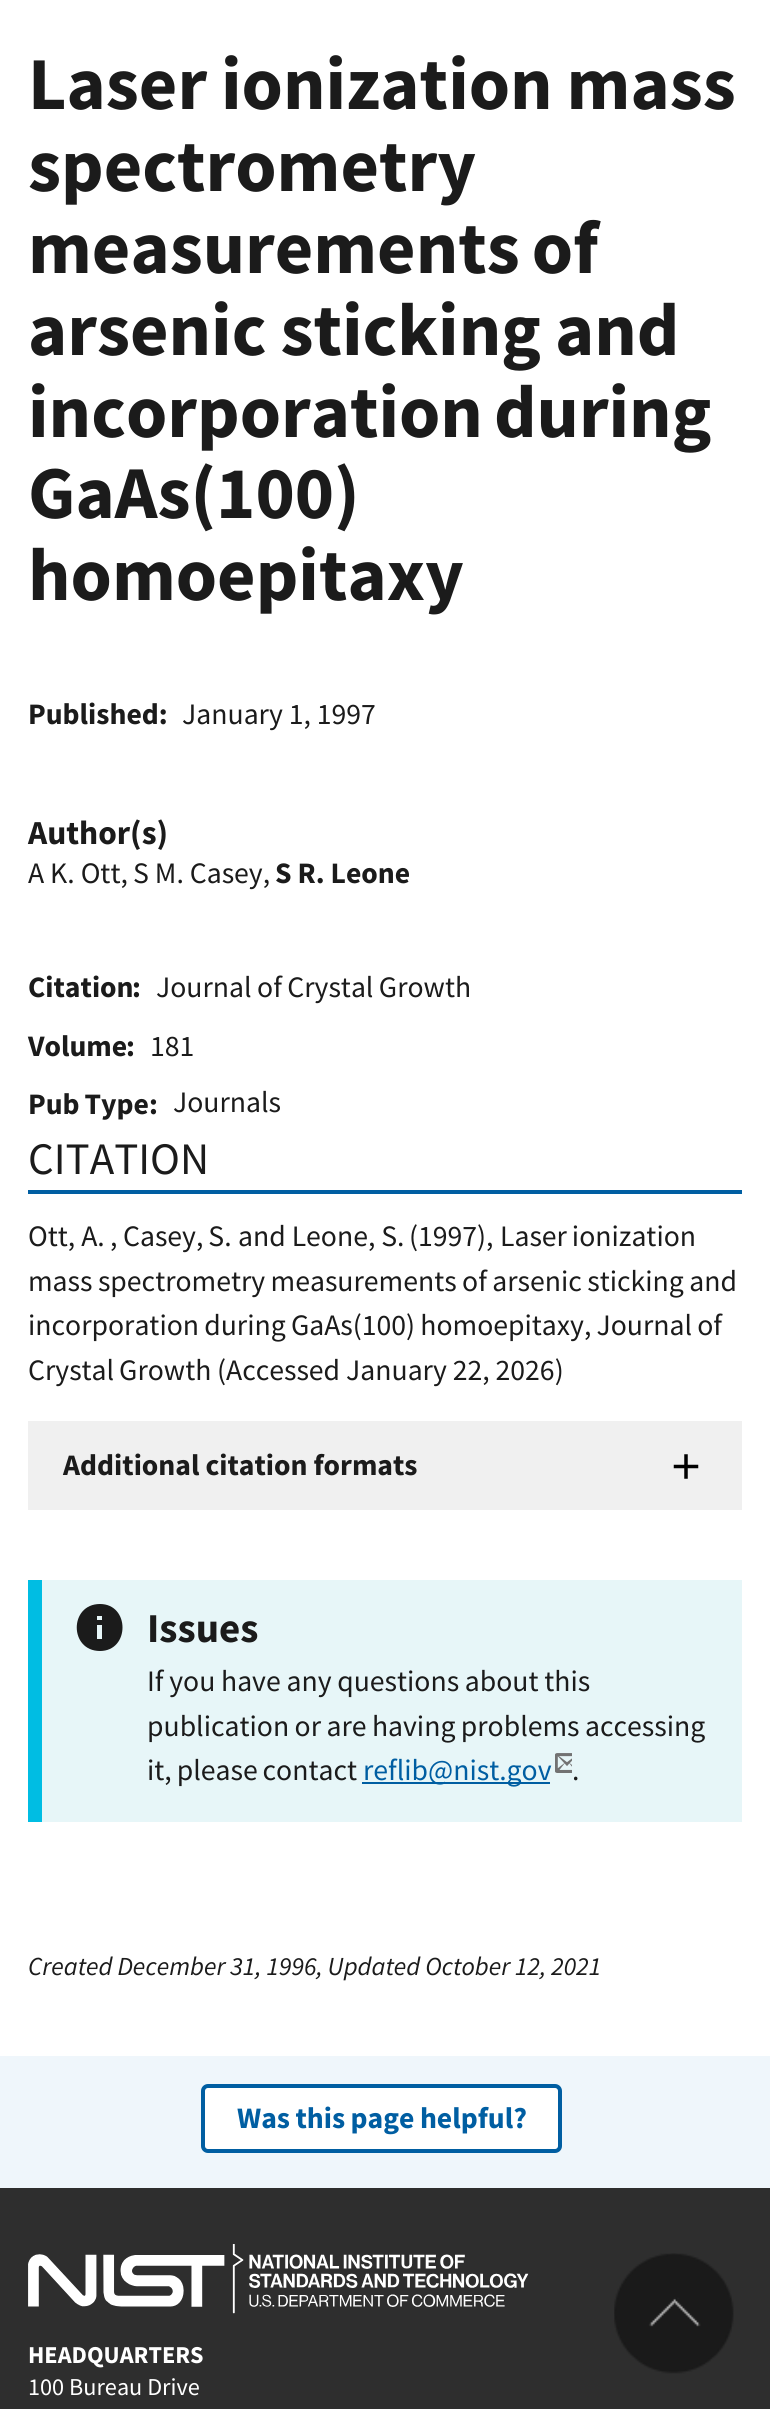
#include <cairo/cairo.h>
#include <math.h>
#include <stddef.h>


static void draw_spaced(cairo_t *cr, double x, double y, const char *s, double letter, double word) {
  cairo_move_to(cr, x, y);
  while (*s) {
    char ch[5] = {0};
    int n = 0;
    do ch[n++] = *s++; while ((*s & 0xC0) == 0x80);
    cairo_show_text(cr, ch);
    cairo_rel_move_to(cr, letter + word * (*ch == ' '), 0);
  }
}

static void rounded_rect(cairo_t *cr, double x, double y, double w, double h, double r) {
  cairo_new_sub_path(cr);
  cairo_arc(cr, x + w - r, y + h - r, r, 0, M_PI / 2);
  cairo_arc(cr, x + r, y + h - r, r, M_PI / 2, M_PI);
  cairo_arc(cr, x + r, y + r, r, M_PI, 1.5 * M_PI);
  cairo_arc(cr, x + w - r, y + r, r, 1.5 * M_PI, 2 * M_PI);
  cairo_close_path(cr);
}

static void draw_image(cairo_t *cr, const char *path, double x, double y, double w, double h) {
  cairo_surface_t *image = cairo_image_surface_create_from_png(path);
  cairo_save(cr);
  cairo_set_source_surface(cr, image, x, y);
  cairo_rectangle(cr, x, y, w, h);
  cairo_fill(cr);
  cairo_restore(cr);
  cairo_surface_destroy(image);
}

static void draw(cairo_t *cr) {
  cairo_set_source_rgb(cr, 1, 1, 1);
  cairo_paint(cr);
  cairo_set_source_rgb(cr, 0, 94 / 255.0, 162 / 255.0);
  cairo_rectangle(cr, 28, 1190, 714, 4);
  cairo_fill(cr);
  cairo_set_source_rgb(cr, 240 / 255.0, 240 / 255.0, 240 / 255.0);
  cairo_rectangle(cr, 28, 1421, 714, 89);
  cairo_fill(cr);
  draw_image(cr, "images/1.png", 673, 1454, 26, 25);
  cairo_set_source_rgb(cr, 231 / 255.0, 246 / 255.0, 248 / 255.0);
  cairo_rectangle(cr, 42, 1580, 700, 242);
  cairo_fill(cr);
  cairo_set_source_rgb(cr, 0, 189 / 255.0, 227 / 255.0);
  cairo_rectangle(cr, 28, 1580, 14, 242);
  cairo_fill(cr);
  cairo_set_source_rgb(cr, 27 / 255.0, 27 / 255.0, 27 / 255.0);
  cairo_new_path(cr);
  cairo_move_to(cr, 100, 1604);
  cairo_curve_to(cr, 69, 1604, 69, 1651, 100, 1651);
  cairo_curve_to(cr, 130, 1651, 130, 1604, 100, 1604);
  cairo_close_path(cr);
  cairo_move_to(cr, 102, 1639);
  cairo_line_to(cr, 97, 1639);
  cairo_line_to(cr, 97, 1625);
  cairo_line_to(cr, 102, 1625);
  cairo_close_path(cr);
  cairo_move_to(cr, 102, 1620);
  cairo_line_to(cr, 97, 1620);
  cairo_line_to(cr, 97, 1616);
  cairo_line_to(cr, 102, 1616);
  cairo_close_path(cr);
  cairo_fill(cr);
  cairo_set_source_rgb(cr, 0, 94 / 255.0, 162 / 255.0);
  cairo_rectangle(cr, 362, 1782, 188, 2);
  cairo_fill(cr);
  draw_image(cr, "images/2.png", 555, 1753, 17, 20);
  cairo_set_source_rgb(cr, 239 / 255.0, 246 / 255.0, 251 / 255.0);
  cairo_rectangle(cr, 0, 2056, 770, 132);
  cairo_fill(cr);
  cairo_set_source_rgb(cr, 1, 1, 1);
  rounded_rect(cr, 203, 2086, 357, 65, 5);
  cairo_fill_preserve(cr);
  cairo_set_source_rgb(cr, 0, 94 / 255.0, 162 / 255.0);
  cairo_set_line_width(cr, 4);
  cairo_stroke(cr);
  cairo_set_source_rgb(cr, 46 / 255.0, 46 / 255.0, 46 / 255.0);
  cairo_rectangle(cr, 0, 2188, 770, 221);
  cairo_fill(cr);
  draw_image(cr, "images/3.png", 28, 2244, 501, 70);
  draw_image(cr, "images/4.png", 614, 2253, 120, 121);
  cairo_select_font_face(cr, "Source Sans Pro", CAIRO_FONT_SLANT_NORMAL, CAIRO_FONT_WEIGHT_BOLD);
  cairo_set_font_size(cr, 74.5);
  cairo_set_source_rgb(cr, 27 / 255.0, 27 / 255.0, 27 / 255.0);
  draw_spaced(cr, 28, 109, "Laser ionization mass", 0, -1);
  cairo_move_to(cr, 28, 191);
  cairo_show_text(cr, "spectrometry");
  draw_spaced(cr, 28, 273, "measurements of", 0, -3);
  draw_spaced(cr, 28, 355, "arsenic sticking and", 0, -1);
  draw_spaced(cr, 28, 437, "incorporation during", 0, -4);
  cairo_move_to(cr, 28, 518);
  cairo_show_text(cr, "GaAs(100)");
  cairo_move_to(cr, 28, 600);
  cairo_show_text(cr, "homoepitaxy");
  cairo_set_font_size(cr, 29.7);
  cairo_move_to(cr, 28, 724);
  cairo_show_text(cr, "Published:");
  cairo_select_font_face(cr, "Source Sans Pro", CAIRO_FONT_SLANT_NORMAL, CAIRO_FONT_WEIGHT_NORMAL);
  cairo_move_to(cr, 182, 724);
  cairo_show_text(cr, "January 1, 1997");
  cairo_select_font_face(cr, "Source Sans Pro", CAIRO_FONT_SLANT_NORMAL, CAIRO_FONT_WEIGHT_BOLD);
  cairo_set_font_size(cr, 33.5);
  cairo_move_to(cr, 28, 844);
  cairo_show_text(cr, "Author(s)");
  cairo_select_font_face(cr, "Source Sans Pro", CAIRO_FONT_SLANT_NORMAL, CAIRO_FONT_WEIGHT_NORMAL);
  cairo_set_font_size(cr, 29.7);
  cairo_move_to(cr, 28, 883);
  cairo_show_text(cr, "A K. Ott,");
  cairo_move_to(cr, 133, 883);
  cairo_show_text(cr, "S M. Casey,");
  cairo_select_font_face(cr, "Source Sans Pro", CAIRO_FONT_SLANT_NORMAL, CAIRO_FONT_WEIGHT_BOLD);
  cairo_move_to(cr, 275, 883);
  cairo_show_text(cr, "S R. Leone");
  cairo_move_to(cr, 28, 997);
  cairo_show_text(cr, "Citation");
  cairo_move_to(cr, 132, 997);
  cairo_show_text(cr, ":");
  cairo_select_font_face(cr, "Source Sans Pro", CAIRO_FONT_SLANT_NORMAL, CAIRO_FONT_WEIGHT_NORMAL);
  draw_spaced(cr, 156, 997, "Journal of Crystal Growth", 0, -0.5);
  cairo_select_font_face(cr, "Source Sans Pro", CAIRO_FONT_SLANT_NORMAL, CAIRO_FONT_WEIGHT_BOLD);
  cairo_move_to(cr, 28, 1056);
  cairo_show_text(cr, "Volume");
  cairo_move_to(cr, 126, 1056);
  cairo_show_text(cr, ":");
  cairo_select_font_face(cr, "Source Sans Pro", CAIRO_FONT_SLANT_NORMAL, CAIRO_FONT_WEIGHT_NORMAL);
  cairo_move_to(cr, 150, 1056);
  cairo_show_text(cr, "181");
  cairo_select_font_face(cr, "Source Sans Pro", CAIRO_FONT_SLANT_NORMAL, CAIRO_FONT_WEIGHT_BOLD);
  draw_spaced(cr, 28, 1114, "Pub Type", 0, -1);
  cairo_move_to(cr, 149, 1114);
  cairo_show_text(cr, ":");
  cairo_select_font_face(cr, "Source Sans Pro", CAIRO_FONT_SLANT_NORMAL, CAIRO_FONT_WEIGHT_NORMAL);
  cairo_move_to(cr, 173, 1112);
  cairo_show_text(cr, "Journals");
  cairo_set_font_size(cr, 45);
  cairo_move_to(cr, 28, 1174);
  cairo_show_text(cr, "CITATION");
  cairo_set_font_size(cr, 29.7);
  cairo_move_to(cr, 28, 1246);
  cairo_show_text(cr, "Ott, A.");
  cairo_move_to(cr, 110, 1246);
  cairo_show_text(cr, ",");
  draw_spaced(cr, 123, 1246, "Casey, S.", 0, -1);
  cairo_move_to(cr, 238, 1246);
  cairo_show_text(cr, "and Leone, S.");
  cairo_move_to(cr, 409, 1246);
  cairo_show_text(cr, "(1997),");
  draw_spaced(cr, 500, 1246, "Laser ionization", 0, -1);
  draw_spaced(cr, 28, 1291, "mass spectrometry measurements of arsenic sticking and", 0, -0.5);
  draw_spaced(cr, 28, 1335, "incorporation during GaAs(100) homoepitaxy, Journal of", 0, -0.75);
  draw_spaced(cr, 28, 1380, "Crystal Growth", 0, -1);
  cairo_move_to(cr, 217, 1380);
  cairo_show_text(cr, "(Accessed January 22, 2026)");
  cairo_select_font_face(cr, "Source Sans Pro", CAIRO_FONT_SLANT_NORMAL, CAIRO_FONT_WEIGHT_BOLD);
  cairo_move_to(cr, 63, 1475);
  cairo_show_text(cr, "Additional citation formats");
  cairo_set_font_size(cr, 41);
  cairo_move_to(cr, 147, 1642);
  cairo_show_text(cr, "Issues");
  cairo_select_font_face(cr, "Source Sans Pro", CAIRO_FONT_SLANT_NORMAL, CAIRO_FONT_WEIGHT_NORMAL);
  cairo_set_font_size(cr, 29.7);
  draw_spaced(cr, 147, 1691, "If you have any questions about this", 0, -0.25);
  draw_spaced(cr, 147, 1736, "publication or are having problems accessing", 0, -0.5);
  draw_spaced(cr, 147, 1780, "it, please contact", 0, -1);
  cairo_set_source_rgb(cr, 0, 94 / 255.0, 162 / 255.0);
  cairo_move_to(cr, 363, 1780);
  cairo_show_text(cr, "reflib@nist.gov");
  cairo_set_source_rgb(cr, 27 / 255.0, 27 / 255.0, 27 / 255.0);
  cairo_move_to(cr, 572, 1780);
  cairo_show_text(cr, ".");
  cairo_select_font_face(cr, "Source Sans Pro", CAIRO_FONT_SLANT_ITALIC, CAIRO_FONT_WEIGHT_NORMAL);
  cairo_set_font_size(cr, 26);
  draw_spaced(cr, 28, 1975, "Created December 31, 1996, Updated October 12, 2021", 0, -0.25);
  cairo_select_font_face(cr, "Source Sans Pro", CAIRO_FONT_SLANT_NORMAL, CAIRO_FONT_WEIGHT_BOLD);
  cairo_set_font_size(cr, 29.7);
  cairo_set_source_rgb(cr, 0, 94 / 255.0, 162 / 255.0);
  draw_spaced(cr, 237, 2128, "Was this page helpful?", 0, -0.5);
  cairo_set_font_size(cr, 24.25);
  cairo_set_source_rgb(cr, 1, 1, 1);
  cairo_move_to(cr, 28, 2363);
  cairo_show_text(cr, "HEADQUARTERS");
  cairo_select_font_face(cr, "Source Sans Pro", CAIRO_FONT_SLANT_NORMAL, CAIRO_FONT_WEIGHT_NORMAL);
  cairo_move_to(cr, 28, 2395);
  cairo_show_text(cr, "100 Bureau Drive");
}

int main(void) {
  cairo_surface_t *surface = cairo_image_surface_create(CAIRO_FORMAT_RGB24, 770, 2409);
  cairo_t *cr = cairo_create(surface);
  cairo_font_options_t *options = cairo_font_options_create();
  cairo_font_options_set_hint_metrics(options, CAIRO_HINT_METRICS_OFF);
  cairo_font_options_set_hint_style(options, CAIRO_HINT_STYLE_NONE);
  cairo_set_font_options(cr, options);
  cairo_set_miter_limit(cr, 4);
  draw(cr);
  cairo_surface_write_to_png(surface, "out.png");
  cairo_font_options_destroy(options);
  cairo_destroy(cr);
  cairo_surface_destroy(surface);
  return 0;
}
